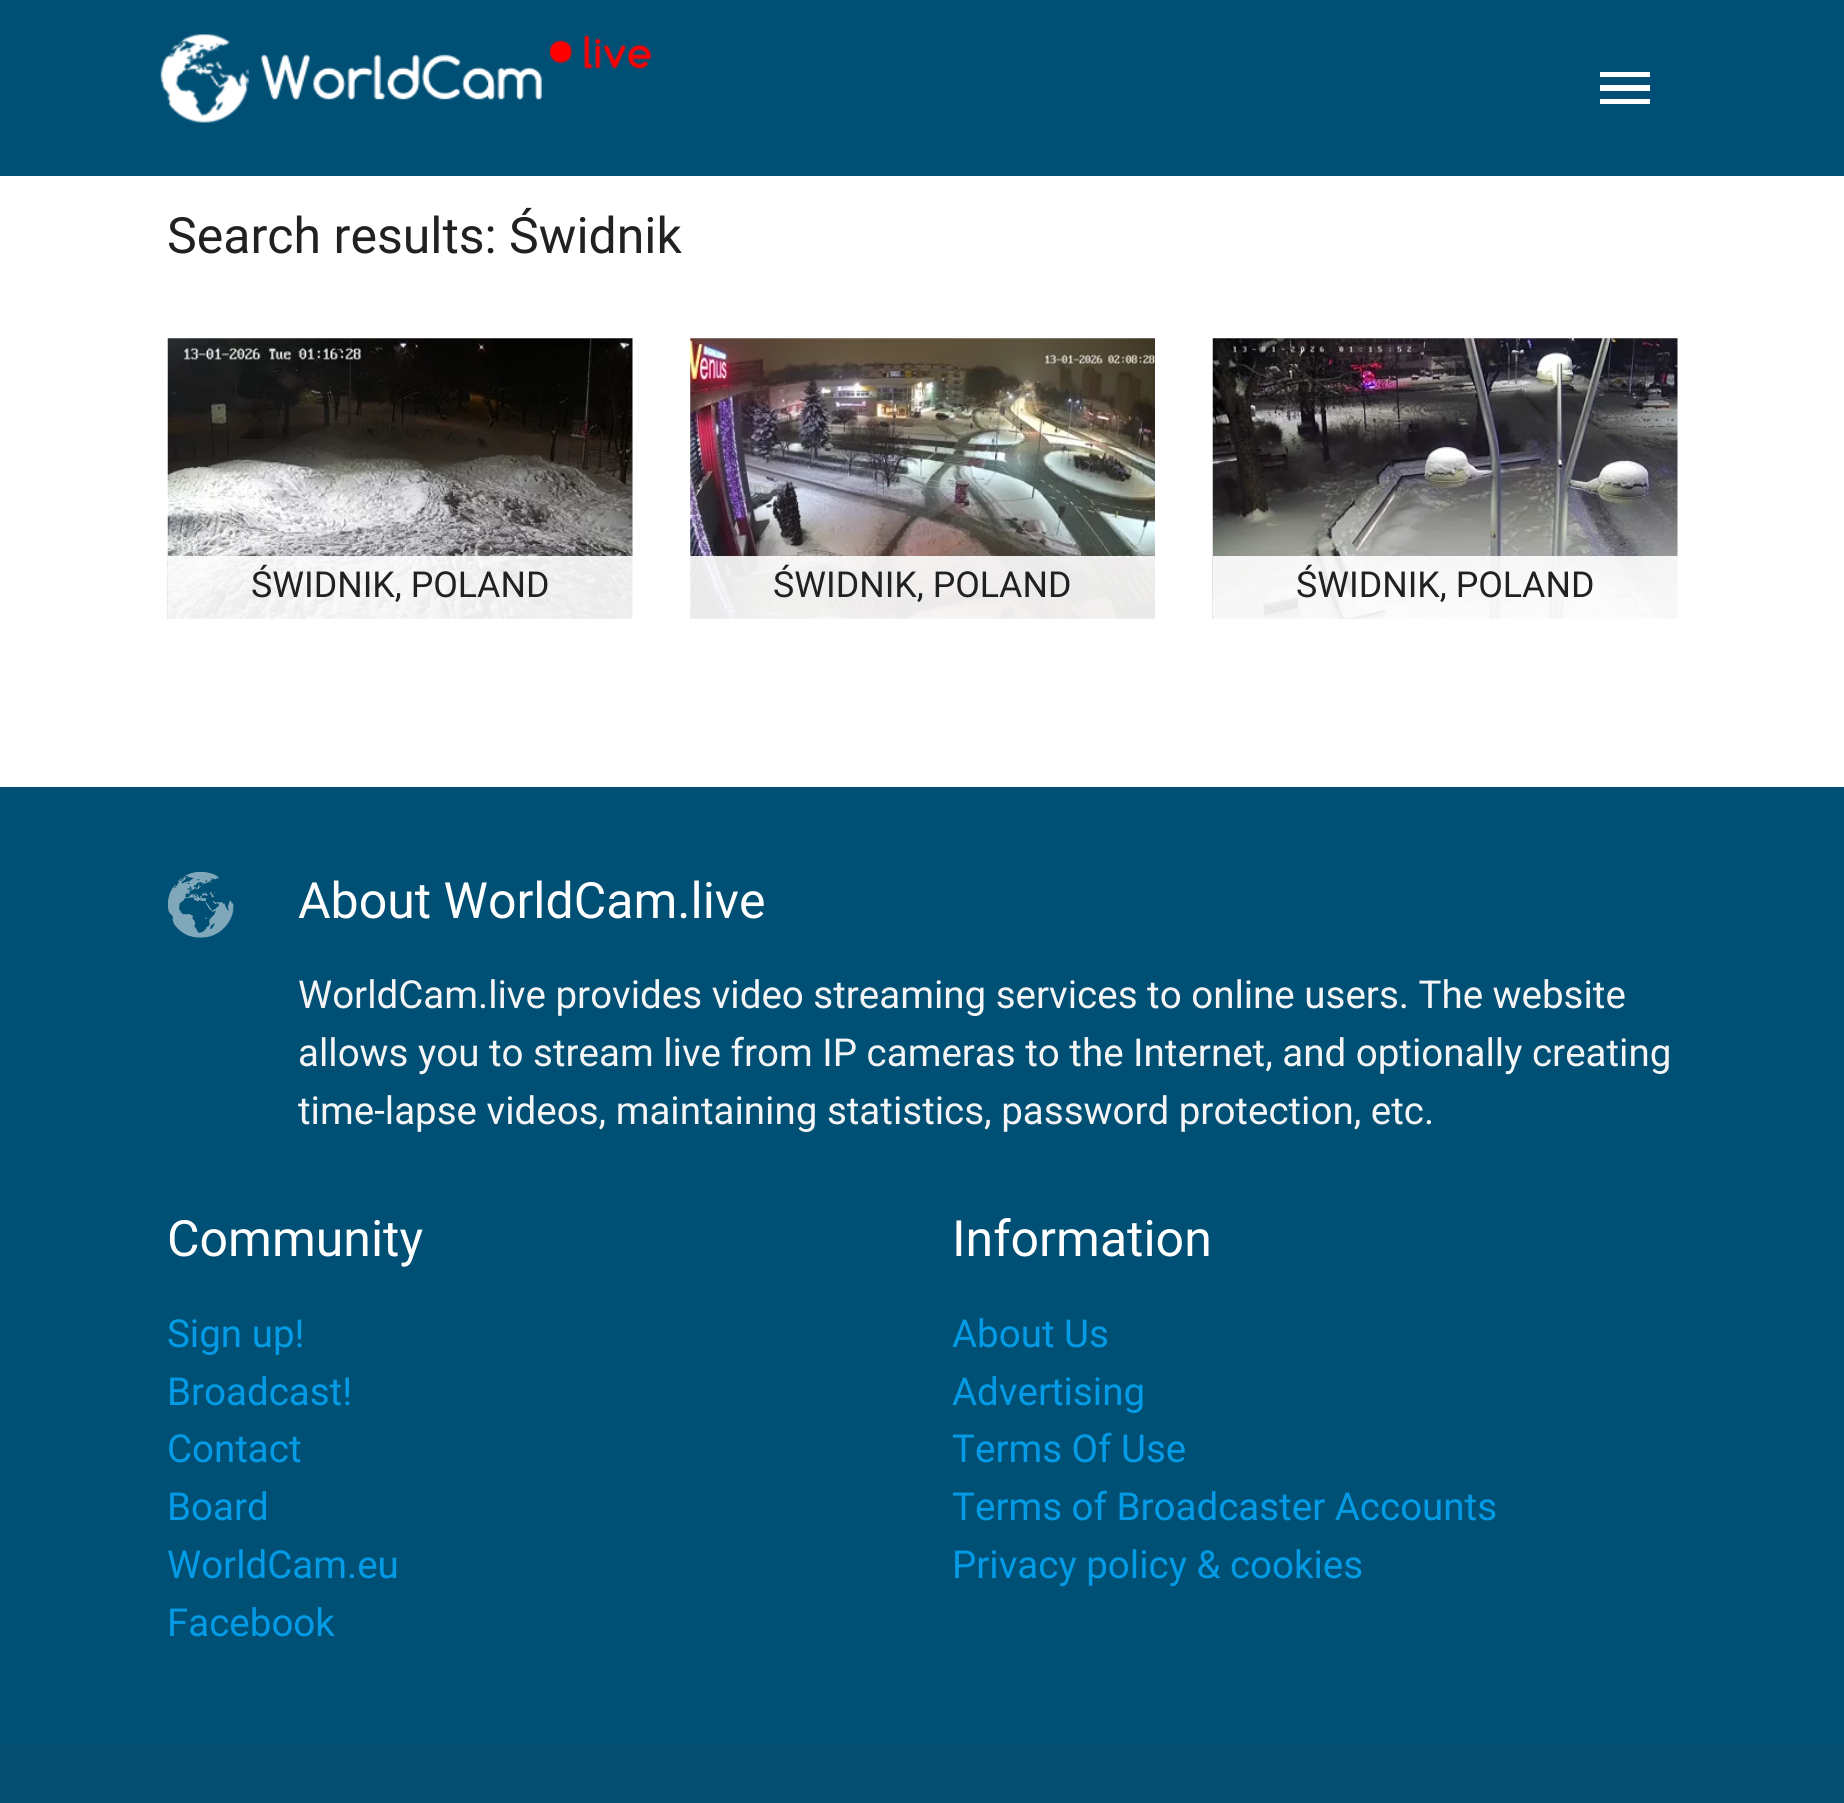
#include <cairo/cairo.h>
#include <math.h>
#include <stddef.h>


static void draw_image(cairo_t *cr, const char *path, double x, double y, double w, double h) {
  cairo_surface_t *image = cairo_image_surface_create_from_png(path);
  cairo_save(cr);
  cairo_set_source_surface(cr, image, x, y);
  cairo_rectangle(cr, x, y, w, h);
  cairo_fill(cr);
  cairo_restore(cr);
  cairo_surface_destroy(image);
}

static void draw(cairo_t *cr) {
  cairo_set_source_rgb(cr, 1, 1, 1);
  cairo_paint(cr);
  cairo_set_source_rgb(cr, 0, 80 / 255.0, 117 / 255.0);
  cairo_rectangle(cr, 0, 0, 1844, 176);
  cairo_fill(cr);
  draw_image(cr, "images/1.png", 160, 34, 492, 89);
  cairo_set_source_rgb(cr, 1, 1, 1);
  cairo_new_path(cr);
  cairo_move_to(cr, 1600, 72);
  cairo_line_to(cr, 1650, 72);
  cairo_line_to(cr, 1650, 77);
  cairo_line_to(cr, 1600, 77);
  cairo_close_path(cr);
  cairo_move_to(cr, 1600, 91);
  cairo_line_to(cr, 1600, 85);
  cairo_line_to(cr, 1650, 85);
  cairo_line_to(cr, 1650, 91);
  cairo_close_path(cr);
  cairo_move_to(cr, 1600, 104);
  cairo_line_to(cr, 1600, 99);
  cairo_line_to(cr, 1650, 99);
  cairo_line_to(cr, 1650, 104);
  cairo_close_path(cr);
  cairo_fill(cr);
  draw_image(cr, "images/2.png", 167, 338, 466, 281);
  cairo_set_source_rgba(cr, 1, 1, 1, 0.9);
  cairo_rectangle(cr, 168, 556, 465, 63);
  cairo_fill(cr);
  draw_image(cr, "images/3.png", 690, 338, 465, 281);
  cairo_rectangle(cr, 690, 556, 465, 63);
  cairo_fill(cr);
  draw_image(cr, "images/4.png", 1212, 338, 466, 281);
  cairo_rectangle(cr, 1213, 556, 465, 63);
  cairo_fill(cr);
  cairo_set_source_rgb(cr, 0, 80 / 255.0, 117 / 255.0);
  cairo_rectangle(cr, 0, 787, 1844, 959);
  cairo_fill(cr);
  draw_image(cr, "images/5.png", 168, 872, 66, 66);
  cairo_set_source_rgb(cr, 4 / 255.0, 78 / 255.0, 112 / 255.0);
  cairo_rectangle(cr, 0, 1746, 1844, 57);
  cairo_fill(cr);
  cairo_select_font_face(cr, "Roboto", CAIRO_FONT_SLANT_NORMAL, CAIRO_FONT_WEIGHT_NORMAL);
  cairo_set_font_size(cr, 50);
  cairo_set_source_rgb(cr, 33 / 255.0, 33 / 255.0, 33 / 255.0);
  cairo_move_to(cr, 167, 253);
  cairo_show_text(cr, "Search results: Świdnik");
  cairo_set_font_size(cr, 35.75);
  cairo_move_to(cr, 251, 597);
  cairo_show_text(cr, "ŚWIDNIK, POLAND");
  cairo_move_to(cr, 773, 597);
  cairo_show_text(cr, "ŚWIDNIK, POLAND");
  cairo_move_to(cr, 1296, 597);
  cairo_show_text(cr, "ŚWIDNIK, POLAND");
  cairo_set_font_size(cr, 50);
  cairo_set_source_rgb(cr, 1, 1, 1);
  cairo_move_to(cr, 298, 918);
  cairo_show_text(cr, "About WorldCam.live");
  cairo_set_font_size(cr, 38.5);
  cairo_set_source_rgb(cr, 245 / 255.0, 245 / 255.0, 245 / 255.0);
  cairo_move_to(cr, 298, 1008);
  cairo_show_text(cr, "WorldCam.live provides video streaming services to online users. The website");
  cairo_move_to(cr, 298, 1066);
  cairo_show_text(cr, "allows you to stream live from IP cameras to the Internet, and optionally creating");
  cairo_move_to(cr, 298, 1124);
  cairo_show_text(cr, "time-lapse videos, maintaining statistics, password protection, etc.");
  cairo_set_font_size(cr, 50);
  cairo_set_source_rgb(cr, 1, 1, 1);
  cairo_move_to(cr, 167, 1256);
  cairo_show_text(cr, "Community");
  cairo_set_font_size(cr, 38.5);
  cairo_set_source_rgb(cr, 3 / 255.0, 155 / 255.0, 229 / 255.0);
  cairo_move_to(cr, 167, 1347);
  cairo_show_text(cr, "Sign up!");
  cairo_move_to(cr, 167, 1405);
  cairo_show_text(cr, "Broadcast!");
  cairo_move_to(cr, 167, 1462);
  cairo_show_text(cr, "Contact");
  cairo_move_to(cr, 167, 1520);
  cairo_show_text(cr, "Board");
  cairo_move_to(cr, 167, 1578);
  cairo_show_text(cr, "WorldCam.eu");
  cairo_move_to(cr, 167, 1636);
  cairo_show_text(cr, "Facebook");
  cairo_set_font_size(cr, 50);
  cairo_set_source_rgb(cr, 1, 1, 1);
  cairo_move_to(cr, 952, 1256);
  cairo_show_text(cr, "Information");
  cairo_set_font_size(cr, 38.5);
  cairo_set_source_rgb(cr, 3 / 255.0, 155 / 255.0, 229 / 255.0);
  cairo_move_to(cr, 952, 1347);
  cairo_show_text(cr, "About Us");
  cairo_move_to(cr, 952, 1405);
  cairo_show_text(cr, "Advertising");
  cairo_move_to(cr, 952, 1462);
  cairo_show_text(cr, "Terms Of Use");
  cairo_move_to(cr, 952, 1520);
  cairo_show_text(cr, "Terms of Broadcaster Accounts");
  cairo_move_to(cr, 952, 1578);
  cairo_show_text(cr, "Privacy policy & cookies");
}

int main(void) {
  cairo_surface_t *surface = cairo_image_surface_create(CAIRO_FORMAT_RGB24, 1844, 1803);
  cairo_t *cr = cairo_create(surface);
  cairo_font_options_t *options = cairo_font_options_create();
  cairo_font_options_set_hint_metrics(options, CAIRO_HINT_METRICS_OFF);
  cairo_font_options_set_hint_style(options, CAIRO_HINT_STYLE_NONE);
  cairo_set_font_options(cr, options);
  cairo_set_miter_limit(cr, 4);
  draw(cr);
  cairo_surface_write_to_png(surface, "out.png");
  cairo_font_options_destroy(options);
  cairo_destroy(cr);
  cairo_surface_destroy(surface);
  return 0;
}
